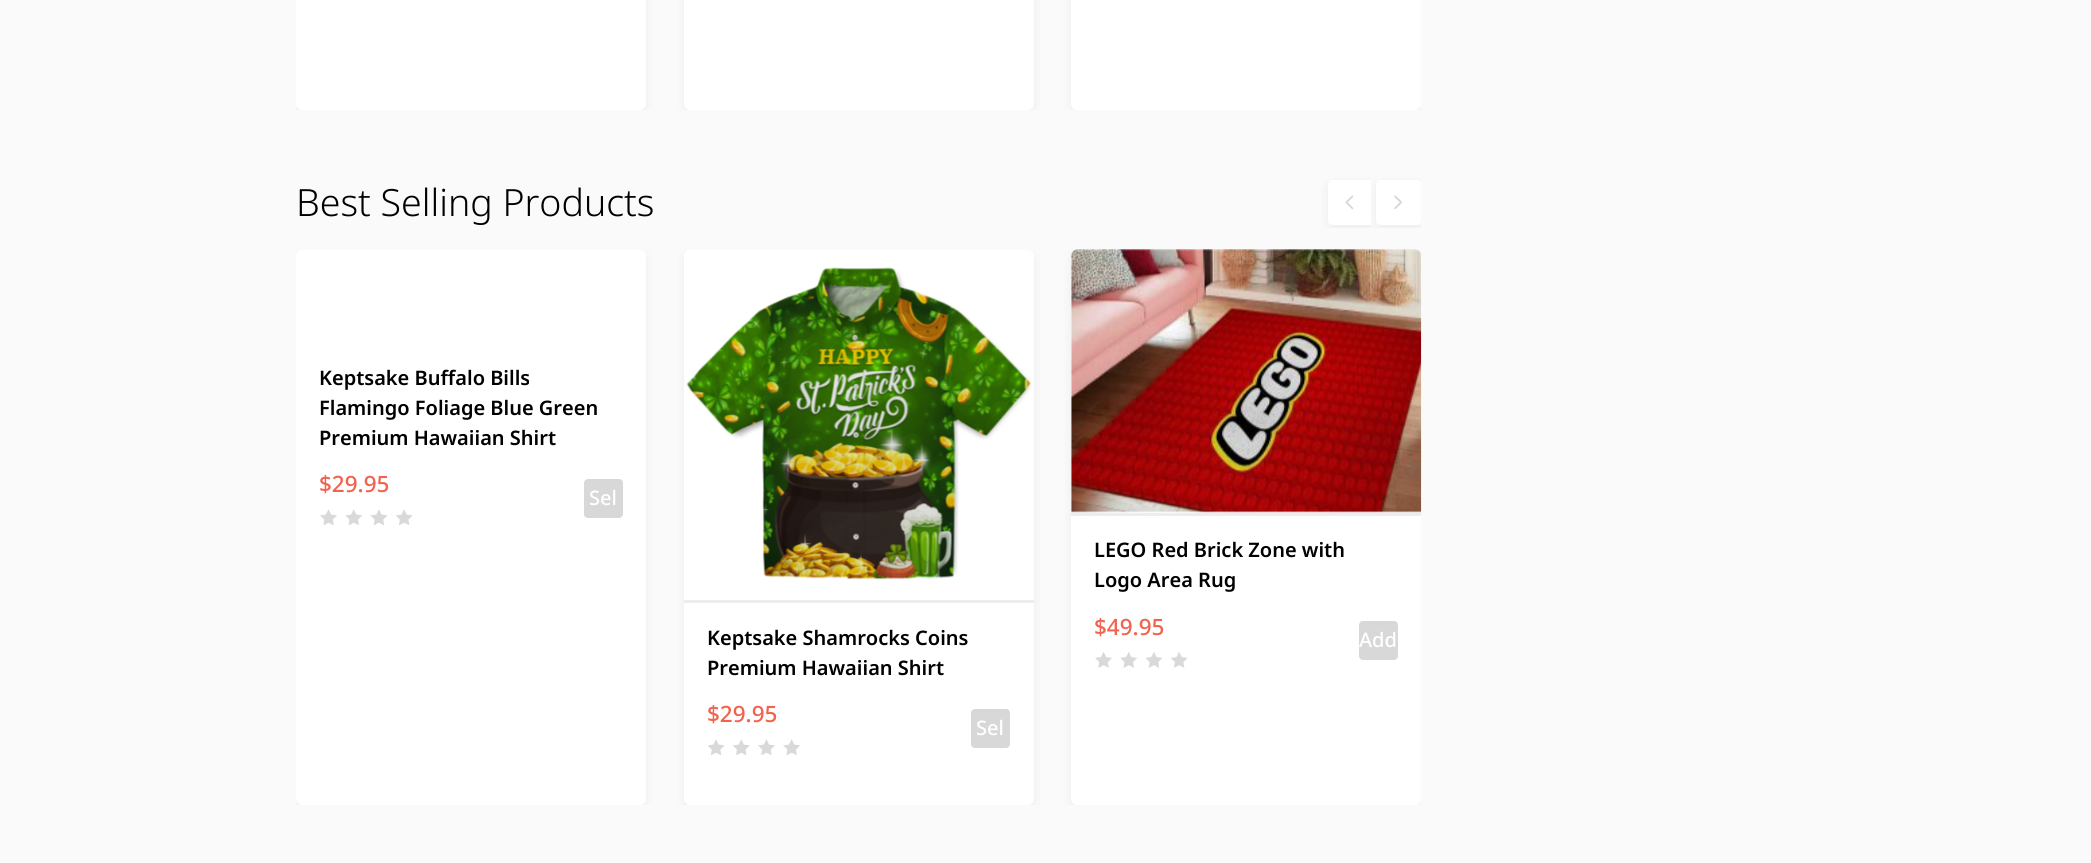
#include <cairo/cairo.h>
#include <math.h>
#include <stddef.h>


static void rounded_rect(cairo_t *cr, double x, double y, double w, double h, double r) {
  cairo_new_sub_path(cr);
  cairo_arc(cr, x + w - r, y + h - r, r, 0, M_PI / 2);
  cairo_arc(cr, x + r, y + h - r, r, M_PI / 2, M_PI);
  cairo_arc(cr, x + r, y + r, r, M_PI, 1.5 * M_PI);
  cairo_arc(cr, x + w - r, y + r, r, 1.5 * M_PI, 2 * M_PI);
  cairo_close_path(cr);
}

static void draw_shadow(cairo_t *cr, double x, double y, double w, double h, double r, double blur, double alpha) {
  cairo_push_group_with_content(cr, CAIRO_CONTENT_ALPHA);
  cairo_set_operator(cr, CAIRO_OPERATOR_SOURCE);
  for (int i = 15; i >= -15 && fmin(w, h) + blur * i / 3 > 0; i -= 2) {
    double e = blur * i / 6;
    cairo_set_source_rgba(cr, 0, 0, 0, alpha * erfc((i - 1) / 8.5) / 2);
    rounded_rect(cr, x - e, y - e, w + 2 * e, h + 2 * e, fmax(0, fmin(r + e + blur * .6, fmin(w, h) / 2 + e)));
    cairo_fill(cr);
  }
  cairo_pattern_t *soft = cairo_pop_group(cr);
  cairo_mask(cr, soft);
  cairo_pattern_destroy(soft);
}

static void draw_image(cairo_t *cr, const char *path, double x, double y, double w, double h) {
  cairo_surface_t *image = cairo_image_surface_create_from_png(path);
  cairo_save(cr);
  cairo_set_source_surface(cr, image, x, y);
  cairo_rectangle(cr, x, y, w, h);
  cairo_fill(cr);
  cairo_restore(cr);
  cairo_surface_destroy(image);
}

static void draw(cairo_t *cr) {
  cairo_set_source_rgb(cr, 250 / 255.0, 250 / 255.0, 250 / 255.0);
  cairo_paint(cr);
  cairo_save(cr);
  cairo_rectangle(cr, 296, 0, 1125, 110);
  cairo_clip(cr);
  cairo_set_source_rgb(cr, 0, 0, 0);
  draw_shadow(cr, 296, -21, 350, 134, 6, 5, 0.06);
  cairo_restore(cr);
  cairo_set_source_rgb(cr, 1, 1, 1);
  rounded_rect(cr, 296, -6, 350, 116, 6);
  cairo_fill(cr);
  cairo_save(cr);
  cairo_rectangle(cr, 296, 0, 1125, 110);
  cairo_clip(cr);
  cairo_set_source_rgb(cr, 0, 0, 0);
  draw_shadow(cr, 684, -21, 350, 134, 6, 5, 0.06);
  cairo_restore(cr);
  rounded_rect(cr, 684, -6, 350, 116, 6);
  cairo_fill(cr);
  cairo_save(cr);
  cairo_rectangle(cr, 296, 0, 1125, 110);
  cairo_clip(cr);
  cairo_set_source_rgb(cr, 0, 0, 0);
  draw_shadow(cr, 1071, -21, 350, 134, 6, 5, 0.06);
  cairo_restore(cr);
  rounded_rect(cr, 1071, -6, 350, 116, 6);
  cairo_fill(cr);
  cairo_save(cr);
  cairo_rectangle(cr, 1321, 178, 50, 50);
  cairo_clip(cr);
  cairo_set_source_rgb(cr, 0, 0, 0);
  draw_shadow(cr, 1328, 183, 45, 45, 4, 5, 0.06);
  cairo_restore(cr);
  cairo_save(cr);
  cairo_rectangle(cr, 1321, 178, 50, 50);
  cairo_clip(cr);
  rounded_rect(cr, 1328, 180, 45, 45, 4);
  cairo_fill(cr);
  cairo_restore(cr);
  draw_image(cr, "images/1.png", 1345, 195, 9, 15);
  cairo_save(cr);
  cairo_rectangle(cr, 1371, 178, 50, 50);
  cairo_clip(cr);
  cairo_set_source_rgb(cr, 0, 0, 0);
  draw_shadow(cr, 1376, 183, 45, 45, 4, 5, 0.06);
  cairo_restore(cr);
  rounded_rect(cr, 1376, 180, 45, 45, 4);
  cairo_fill(cr);
  draw_image(cr, "images/2.png", 1394, 195, 8, 15);
  cairo_save(cr);
  cairo_rectangle(cr, 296, 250, 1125, 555);
  cairo_clip(cr);
  cairo_set_source_rgb(cr, 0, 0, 0);
  draw_shadow(cr, 296, 253, 350, 555, 6, 5, 0.06);
  cairo_restore(cr);
  rounded_rect(cr, 296, 250, 350, 555, 6);
  cairo_fill(cr);
  draw_image(cr, "images/3.png", 320, 509, 93, 16);
  cairo_set_source_rgb(cr, 216 / 255.0, 216 / 255.0, 216 / 255.0);
  rounded_rect(cr, 584, 479, 39, 39, 4);
  cairo_fill(cr);
  cairo_save(cr);
  cairo_rectangle(cr, 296, 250, 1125, 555);
  cairo_clip(cr);
  cairo_set_source_rgb(cr, 0, 0, 0);
  draw_shadow(cr, 1071, 253, 350, 555, 6, 5, 0.06);
  cairo_restore(cr);
  cairo_set_source_rgb(cr, 1, 1, 1);
  rounded_rect(cr, 1071, 250, 350, 555, 6);
  cairo_fill(cr);
  cairo_set_source_rgb(cr, 236 / 255.0, 237 / 255.0, 239 / 255.0);
  cairo_rectangle(cr, 1071, 513, 350, 3);
  cairo_fill(cr);
  draw_image(cr, "images/4.png", 1071, 249, 351, 264);
  draw_image(cr, "images/5.png", 1095, 652, 93, 16);
  cairo_set_source_rgb(cr, 216 / 255.0, 216 / 255.0, 216 / 255.0);
  rounded_rect(cr, 1359, 621, 39, 39, 4);
  cairo_fill(cr);
  cairo_save(cr);
  cairo_rectangle(cr, 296, 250, 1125, 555);
  cairo_clip(cr);
  cairo_set_source_rgb(cr, 0, 0, 0);
  draw_shadow(cr, 684, 253, 350, 555, 6, 5, 0.06);
  cairo_restore(cr);
  cairo_set_source_rgb(cr, 1, 1, 1);
  rounded_rect(cr, 684, 250, 350, 555, 6);
  cairo_fill(cr);
  cairo_set_source_rgb(cr, 236 / 255.0, 237 / 255.0, 239 / 255.0);
  cairo_rectangle(cr, 684, 600, 350, 3);
  cairo_fill(cr);
  draw_image(cr, "images/6.png", 686, 267, 345, 313);
  draw_image(cr, "images/7.png", 708, 739, 92, 16);
  cairo_set_source_rgb(cr, 216 / 255.0, 216 / 255.0, 216 / 255.0);
  rounded_rect(cr, 971, 709, 39, 39, 4);
  cairo_fill(cr);
  cairo_select_font_face(cr, "Noto Sans Light", CAIRO_FONT_SLANT_NORMAL, CAIRO_FONT_WEIGHT_NORMAL);
  cairo_set_font_size(cr, 37.5);
  cairo_set_source_rgb(cr, 0, 0, 0);
  cairo_move_to(cr, 296, 216);
  cairo_show_text(cr, "Best Selling Products");
  cairo_select_font_face(cr, "Noto Sans SemiBold", CAIRO_FONT_SLANT_NORMAL, CAIRO_FONT_WEIGHT_NORMAL);
  cairo_set_font_size(cr, 20);
  cairo_move_to(cr, 319, 385);
  cairo_show_text(cr, "Keptsake Buffalo Bills");
  cairo_move_to(cr, 319, 415);
  cairo_show_text(cr, "Flamingo Foliage Blue Green");
  cairo_move_to(cr, 319, 445);
  cairo_show_text(cr, "Premium Hawaiian Shirt");
  cairo_select_font_face(cr, "Noto Sans Medium", CAIRO_FONT_SLANT_NORMAL, CAIRO_FONT_WEIGHT_NORMAL);
  cairo_set_font_size(cr, 22.5);
  cairo_set_source_rgb(cr, 242 / 255.0, 98 / 255.0, 77 / 255.0);
  cairo_move_to(cr, 319, 492);
  cairo_show_text(cr, "$29.95");
  cairo_set_font_size(cr, 20);
  cairo_set_source_rgb(cr, 1, 1, 1);
  cairo_move_to(cr, 589, 505);
  cairo_show_text(cr, "Sel");
  cairo_select_font_face(cr, "Noto Sans SemiBold", CAIRO_FONT_SLANT_NORMAL, CAIRO_FONT_WEIGHT_NORMAL);
  cairo_set_source_rgb(cr, 0, 0, 0);
  cairo_move_to(cr, 1094, 557);
  cairo_show_text(cr, "LEGO Red Brick Zone with");
  cairo_move_to(cr, 1094, 587);
  cairo_show_text(cr, "Logo Area Rug");
  cairo_select_font_face(cr, "Noto Sans Medium", CAIRO_FONT_SLANT_NORMAL, CAIRO_FONT_WEIGHT_NORMAL);
  cairo_set_font_size(cr, 22.5);
  cairo_set_source_rgb(cr, 242 / 255.0, 98 / 255.0, 77 / 255.0);
  cairo_move_to(cr, 1094, 635);
  cairo_show_text(cr, "$49.95");
  cairo_set_font_size(cr, 20);
  cairo_set_source_rgb(cr, 1, 1, 1);
  cairo_move_to(cr, 1359, 647);
  cairo_show_text(cr, "Add");
  cairo_select_font_face(cr, "Noto Sans SemiBold", CAIRO_FONT_SLANT_NORMAL, CAIRO_FONT_WEIGHT_NORMAL);
  cairo_set_source_rgb(cr, 0, 0, 0);
  cairo_move_to(cr, 707, 645);
  cairo_show_text(cr, "Keptsake Shamrocks Coins");
  cairo_move_to(cr, 707, 675);
  cairo_show_text(cr, "Premium Hawaiian Shirt");
  cairo_select_font_face(cr, "Noto Sans Medium", CAIRO_FONT_SLANT_NORMAL, CAIRO_FONT_WEIGHT_NORMAL);
  cairo_set_font_size(cr, 22.5);
  cairo_set_source_rgb(cr, 242 / 255.0, 98 / 255.0, 77 / 255.0);
  cairo_move_to(cr, 707, 722);
  cairo_show_text(cr, "$29.95");
  cairo_set_font_size(cr, 20);
  cairo_set_source_rgb(cr, 1, 1, 1);
  cairo_move_to(cr, 976, 735);
  cairo_show_text(cr, "Sel");
}

int main(void) {
  cairo_surface_t *surface = cairo_image_surface_create(CAIRO_FORMAT_RGB24, 2091, 863);
  cairo_t *cr = cairo_create(surface);
  cairo_font_options_t *options = cairo_font_options_create();
  cairo_font_options_set_hint_metrics(options, CAIRO_HINT_METRICS_OFF);
  cairo_font_options_set_hint_style(options, CAIRO_HINT_STYLE_NONE);
  cairo_set_font_options(cr, options);
  cairo_set_miter_limit(cr, 4);
  draw(cr);
  cairo_surface_write_to_png(surface, "out.png");
  cairo_font_options_destroy(options);
  cairo_destroy(cr);
  cairo_surface_destroy(surface);
  return 0;
}
